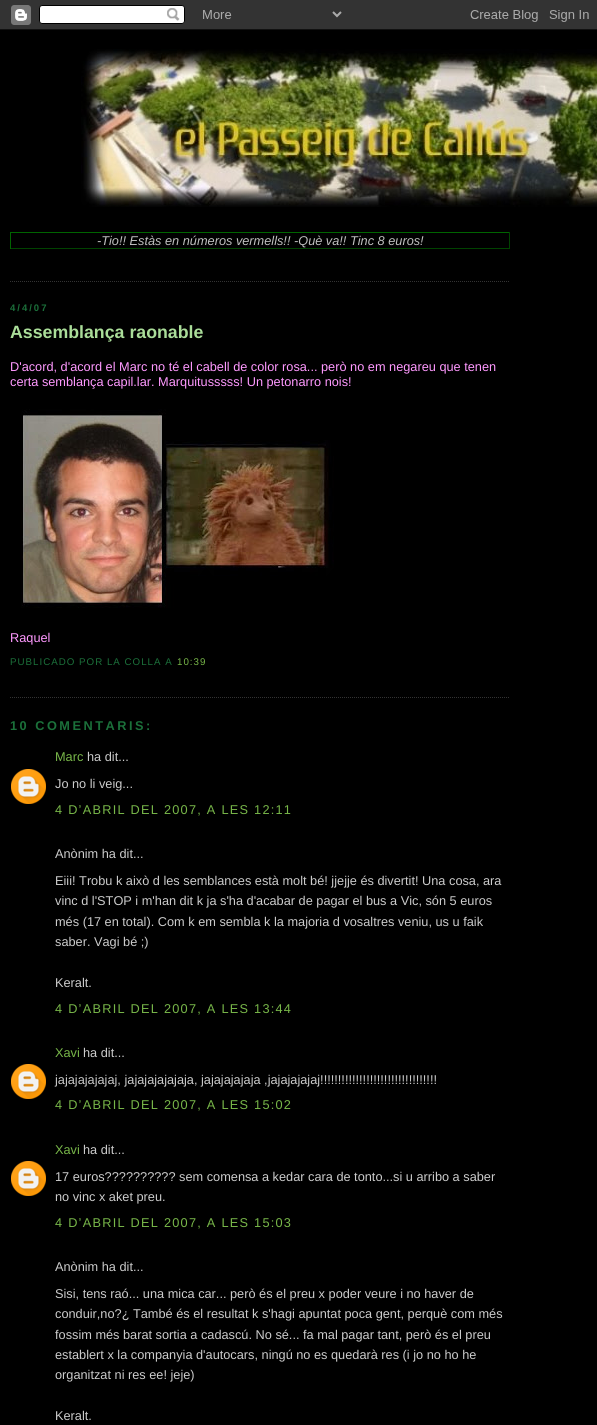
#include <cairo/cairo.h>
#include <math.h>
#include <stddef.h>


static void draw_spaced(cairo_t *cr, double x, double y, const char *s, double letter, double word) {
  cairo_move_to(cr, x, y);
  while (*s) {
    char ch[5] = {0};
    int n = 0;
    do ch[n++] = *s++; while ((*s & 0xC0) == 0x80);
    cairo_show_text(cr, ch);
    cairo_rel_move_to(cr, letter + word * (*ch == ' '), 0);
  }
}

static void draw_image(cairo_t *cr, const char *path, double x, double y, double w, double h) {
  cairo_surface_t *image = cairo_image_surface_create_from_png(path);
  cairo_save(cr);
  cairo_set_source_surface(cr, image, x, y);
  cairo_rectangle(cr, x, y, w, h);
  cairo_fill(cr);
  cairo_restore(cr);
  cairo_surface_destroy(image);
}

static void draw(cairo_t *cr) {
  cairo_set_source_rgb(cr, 0, 0, 0);
  cairo_paint(cr);
  draw_image(cr, "images/1.png", 0, 0, 597, 30);
  draw_image(cr, "images/2.png", 81, 49, 516, 158);
  cairo_new_path(cr);
  cairo_move_to(cr, 10, 281.5);
  cairo_line_to(cr, 510, 281.5);
  cairo_set_source_rgb(cr, 51 / 255.0, 51 / 255.0, 51 / 255.0);
  cairo_set_line_width(cr, 1);
  cairo_set_dash(cr, (double[]){1, 1}, 2, 0);
  cairo_stroke(cr);
  cairo_set_source_rgb(cr, 0, 100 / 255.0, 0);
  cairo_rectangle(cr, 10, 232, 500, 1);
  cairo_fill(cr);
  cairo_set_source_rgb(cr, 0, 67 / 255.0, 0);
  cairo_rectangle(cr, 509, 232, 1, 17);
  cairo_fill(cr);
  cairo_rectangle(cr, 10, 248, 500, 1);
  cairo_fill(cr);
  cairo_set_source_rgb(cr, 0, 100 / 255.0, 0);
  cairo_rectangle(cr, 10, 232, 1, 17);
  cairo_fill(cr);
  cairo_new_path(cr);
  cairo_move_to(cr, 10, 697.5);
  cairo_line_to(cr, 510, 697.5);
  cairo_set_source_rgb(cr, 51 / 255.0, 51 / 255.0, 51 / 255.0);
  cairo_stroke(cr);
  draw_image(cr, "images/3.png", 21, 409, 313, 199);
  draw_image(cr, "images/4.png", 11, 769, 35, 35);
  draw_image(cr, "images/4.png", 11, 1064, 35, 35);
  draw_image(cr, "images/4.png", 11, 1161, 35, 35);
  cairo_select_font_face(cr, "Liberation Sans", CAIRO_FONT_SLANT_ITALIC, CAIRO_FONT_WEIGHT_NORMAL);
  cairo_set_font_size(cr, 12.75);
  cairo_set_source_rgb(cr, 192 / 255.0, 192 / 255.0, 192 / 255.0);
  cairo_move_to(cr, 97, 245);
  cairo_show_text(cr, "-Tio!! Estàs en números vermells!! -Què va!! Tinc 8 euros!");
  cairo_select_font_face(cr, "Liberation Sans", CAIRO_FONT_SLANT_NORMAL, CAIRO_FONT_WEIGHT_BOLD);
  cairo_set_font_size(cr, 9.5);
  cairo_set_source_rgb(cr, 27 / 255.0, 112 / 255.0, 58 / 255.0);
  draw_spaced(cr, 10, 311, "4/4/07", 2, 0);
  cairo_set_font_size(cr, 17.75);
  cairo_set_source_rgb(cr, 170 / 255.0, 221 / 255.0, 153 / 255.0);
  cairo_move_to(cr, 10, 338);
  cairo_show_text(cr, "Assemblança raonable");
  cairo_select_font_face(cr, "Liberation Sans", CAIRO_FONT_SLANT_NORMAL, CAIRO_FONT_WEIGHT_NORMAL);
  cairo_set_font_size(cr, 12.75);
  cairo_set_source_rgb(cr, 1, 153 / 255.0, 1);
  cairo_move_to(cr, 10, 371);
  cairo_show_text(cr, "D'acord, d'acord el Marc no té el cabell de color rosa... però no em negareu que tenen");
  cairo_move_to(cr, 10, 386);
  cairo_show_text(cr, "certa semblança capil.lar. Marquitusssss! Un petonarro nois!");
  cairo_move_to(cr, 10, 642);
  cairo_show_text(cr, "Raquel");
  cairo_set_font_size(cr, 9.75);
  cairo_set_source_rgb(cr, 27 / 255.0, 112 / 255.0, 58 / 255.0);
  draw_spaced(cr, 10, 665, "PUBLICADO POR LA COLLA A", 1, 0);
  cairo_set_source_rgb(cr, 120 / 255.0, 183 / 255.0, 73 / 255.0);
  draw_spaced(cr, 177, 665, "10:39", 1, 0);
  cairo_select_font_face(cr, "Liberation Sans", CAIRO_FONT_SLANT_NORMAL, CAIRO_FONT_WEIGHT_BOLD);
  cairo_set_font_size(cr, 12.75);
  cairo_set_source_rgb(cr, 27 / 255.0, 112 / 255.0, 58 / 255.0);
  draw_spaced(cr, 10, 730, "10 COMENTARIS:", 2.5, 0);
  cairo_select_font_face(cr, "Liberation Sans", CAIRO_FONT_SLANT_NORMAL, CAIRO_FONT_WEIGHT_NORMAL);
  cairo_set_source_rgb(cr, 120 / 255.0, 183 / 255.0, 73 / 255.0);
  cairo_move_to(cr, 55, 761);
  cairo_show_text(cr, "Marc");
  cairo_set_source_rgb(cr, 204 / 255.0, 204 / 255.0, 204 / 255.0);
  cairo_move_to(cr, 87, 761);
  cairo_show_text(cr, "ha dit...");
  cairo_move_to(cr, 55, 788);
  cairo_show_text(cr, "Jo no li veig...");
  cairo_set_source_rgb(cr, 120 / 255.0, 183 / 255.0, 73 / 255.0);
  draw_spaced(cr, 55, 814, "4 D’ABRIL DEL 2007, A LES 12:11", 1.25, 0);
  cairo_set_source_rgb(cr, 204 / 255.0, 204 / 255.0, 204 / 255.0);
  cairo_move_to(cr, 55, 858);
  cairo_show_text(cr, "Anònim ha dit...");
  cairo_move_to(cr, 55, 885);
  cairo_show_text(cr, "Eiii! Trobu k això d les semblances està molt bé! jjejje és divertit! Una cosa, ara");
  cairo_move_to(cr, 55, 905);
  cairo_show_text(cr, "vinc d l'STOP i m'han dit k ja s'ha d'acabar de pagar el bus a Vic, són 5 euros");
  cairo_move_to(cr, 55, 926);
  cairo_show_text(cr, "més (17 en total). Com k em sembla k la majoria d vosaltres veniu, us u faik");
  cairo_move_to(cr, 55, 946);
  cairo_show_text(cr, "saber. Vagi bé ;)");
  cairo_move_to(cr, 55, 987);
  cairo_show_text(cr, "Keralt.");
  cairo_set_source_rgb(cr, 120 / 255.0, 183 / 255.0, 73 / 255.0);
  draw_spaced(cr, 55, 1013, "4 D’ABRIL DEL 2007, A LES 13:44", 1.25, 0);
  cairo_move_to(cr, 55, 1057);
  cairo_show_text(cr, "Xavi");
  cairo_set_source_rgb(cr, 204 / 255.0, 204 / 255.0, 204 / 255.0);
  cairo_move_to(cr, 83, 1057);
  cairo_show_text(cr, "ha dit...");
  cairo_move_to(cr, 55, 1084);
  cairo_show_text(cr, "jajajajajajaj, jajajajajajaja, jajajajajaja ,jajajajajaj!!!!!!!!!!!!!!!!!!!!!!!!!!!!!!!!!");
  cairo_set_source_rgb(cr, 120 / 255.0, 183 / 255.0, 73 / 255.0);
  draw_spaced(cr, 55, 1109, "4 D’ABRIL DEL 2007, A LES 15:02", 1.25, 0);
  cairo_move_to(cr, 55, 1154);
  cairo_show_text(cr, "Xavi");
  cairo_set_source_rgb(cr, 204 / 255.0, 204 / 255.0, 204 / 255.0);
  cairo_move_to(cr, 83, 1154);
  cairo_show_text(cr, "ha dit...");
  cairo_move_to(cr, 55, 1181);
  cairo_show_text(cr, "17 euros?\077?\077?\077?\077?\077 sem comensa a kedar cara de tonto...si u arribo a saber");
  cairo_move_to(cr, 55, 1201);
  cairo_show_text(cr, "no vinc x aket preu.");
  cairo_set_source_rgb(cr, 120 / 255.0, 183 / 255.0, 73 / 255.0);
  draw_spaced(cr, 55, 1227, "4 D’ABRIL DEL 2007, A LES 15:03", 1.25, 0);
  cairo_set_source_rgb(cr, 204 / 255.0, 204 / 255.0, 204 / 255.0);
  cairo_move_to(cr, 55, 1271);
  cairo_show_text(cr, "Anònim ha dit...");
  cairo_move_to(cr, 55, 1298);
  cairo_show_text(cr, "Sisi, tens raó... una mica car... però és el preu x poder veure i no haver de");
  cairo_move_to(cr, 55, 1318);
  cairo_show_text(cr, "conduir,no?¿ També és el resultat k s'hagi apuntat poca gent, perquè com més");
  cairo_move_to(cr, 55, 1339);
  cairo_show_text(cr, "fossim més barat sortia a cadascú. No sé... fa mal pagar tant, però és el preu");
  cairo_move_to(cr, 55, 1359);
  cairo_show_text(cr, "establert x la companyia d'autocars, ningú no es quedarà res (i jo no ho he");
  cairo_move_to(cr, 55, 1379);
  cairo_show_text(cr, "organitzat ni res ee! jeje)");
  cairo_move_to(cr, 55, 1420);
  cairo_show_text(cr, "Keralt.");
}

int main(void) {
  cairo_surface_t *surface = cairo_image_surface_create(CAIRO_FORMAT_RGB24, 597, 1425);
  cairo_t *cr = cairo_create(surface);
  cairo_font_options_t *options = cairo_font_options_create();
  cairo_font_options_set_hint_metrics(options, CAIRO_HINT_METRICS_OFF);
  cairo_font_options_set_hint_style(options, CAIRO_HINT_STYLE_NONE);
  cairo_set_font_options(cr, options);
  cairo_set_miter_limit(cr, 4);
  draw(cr);
  cairo_surface_write_to_png(surface, "out.png");
  cairo_font_options_destroy(options);
  cairo_destroy(cr);
  cairo_surface_destroy(surface);
  return 0;
}
